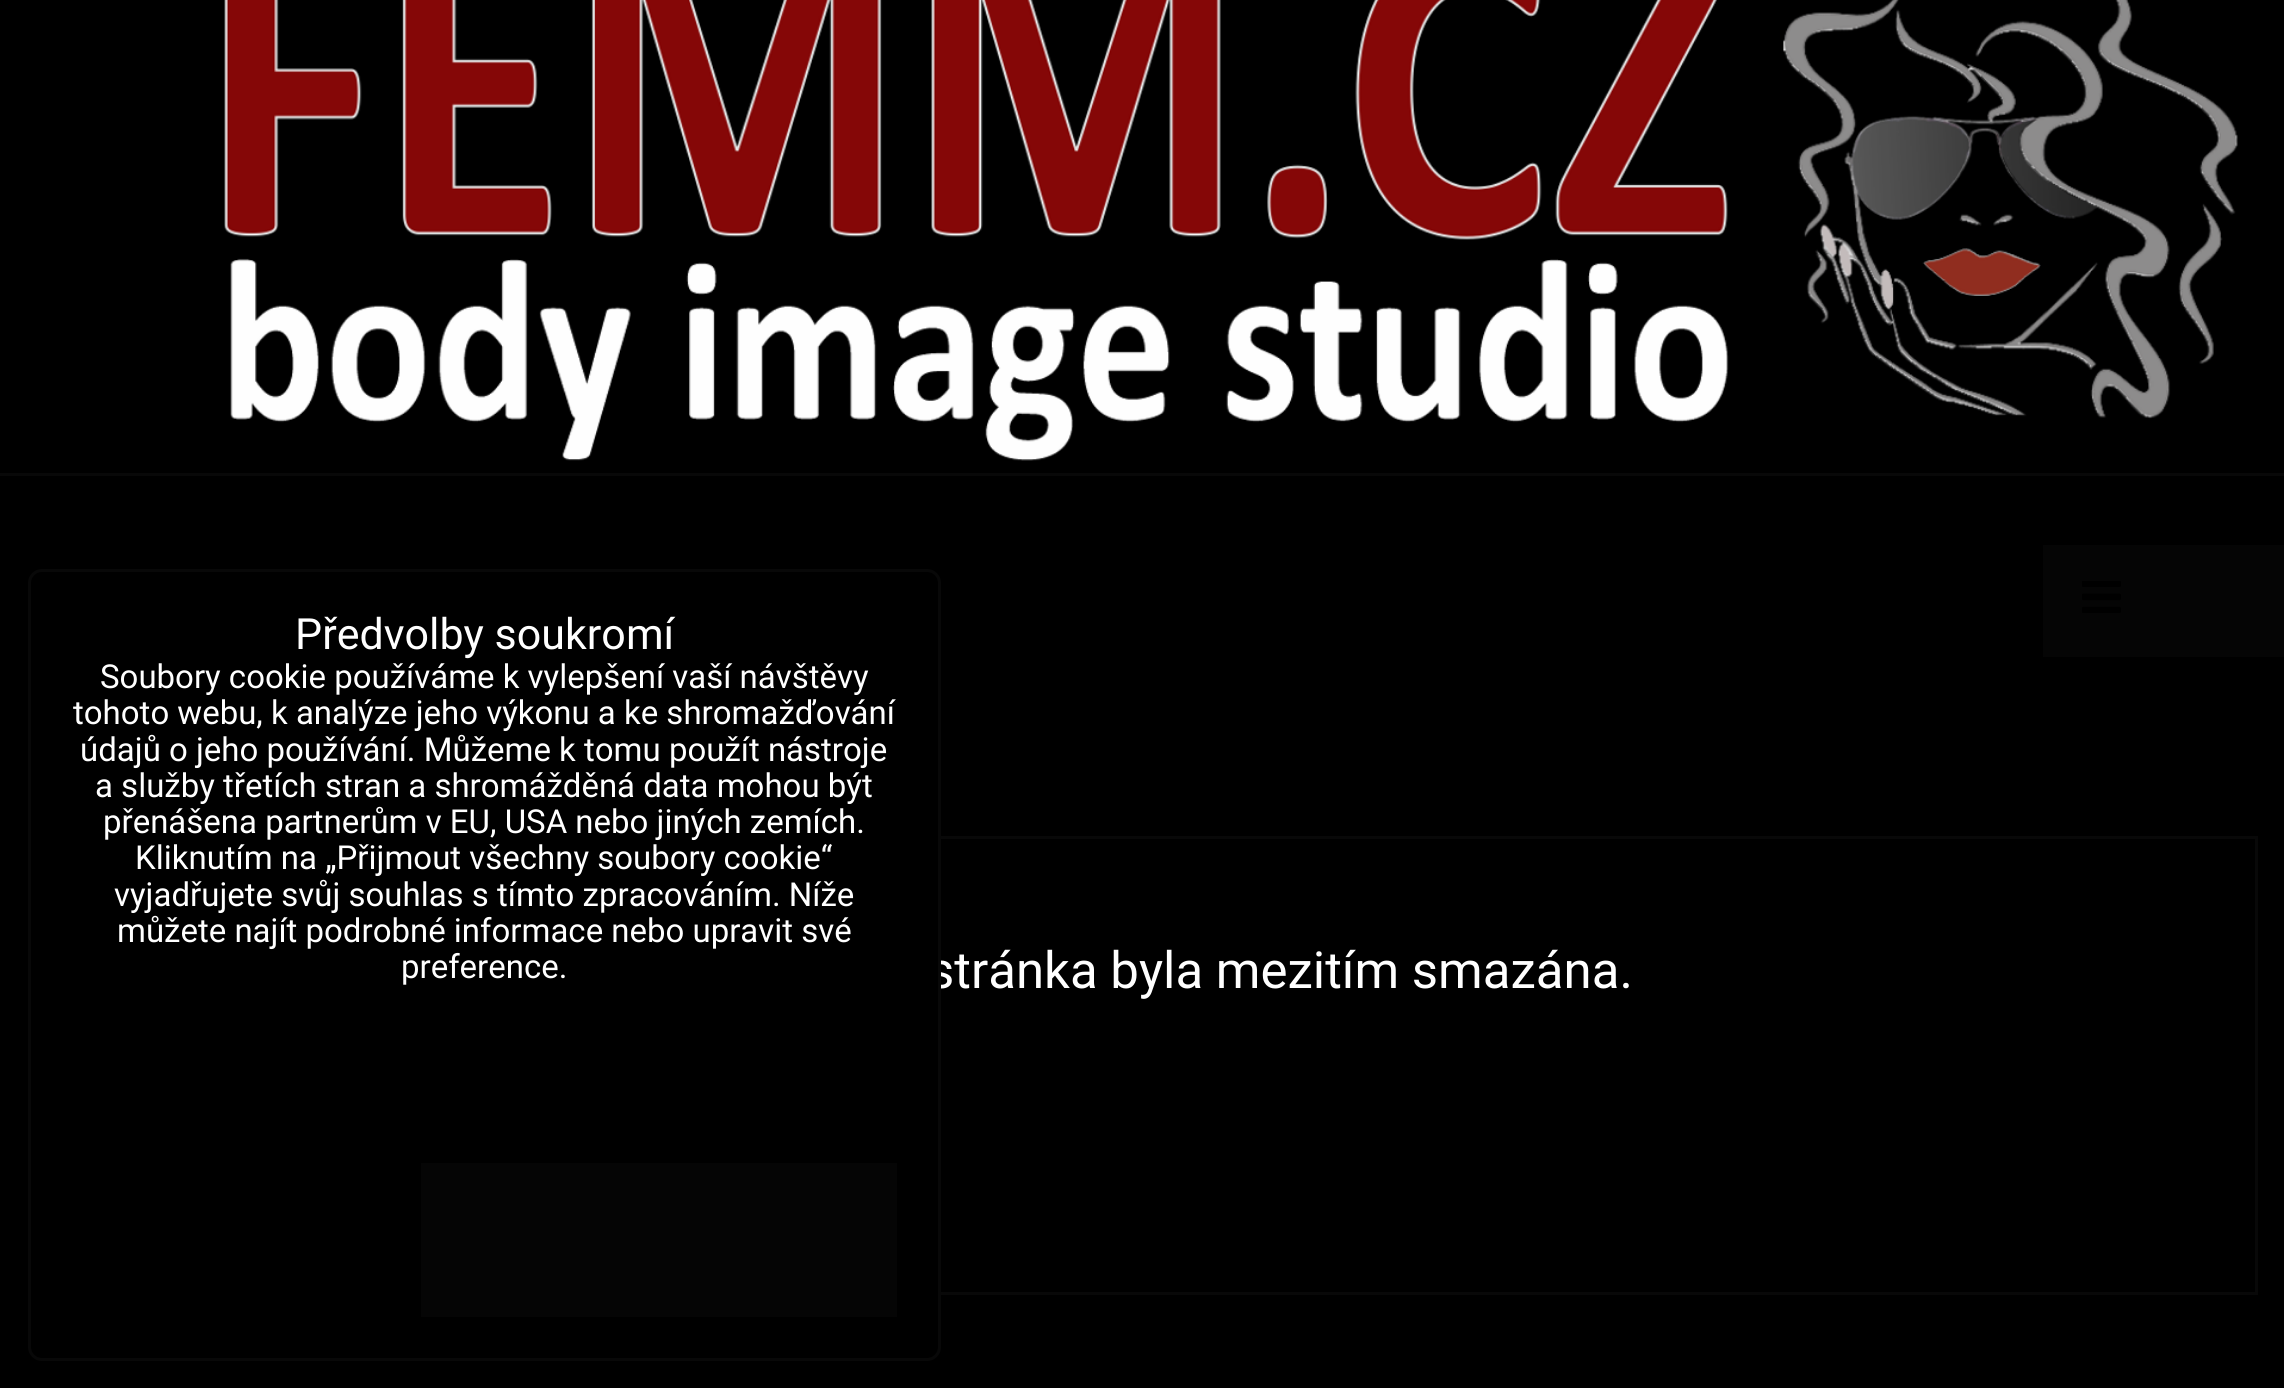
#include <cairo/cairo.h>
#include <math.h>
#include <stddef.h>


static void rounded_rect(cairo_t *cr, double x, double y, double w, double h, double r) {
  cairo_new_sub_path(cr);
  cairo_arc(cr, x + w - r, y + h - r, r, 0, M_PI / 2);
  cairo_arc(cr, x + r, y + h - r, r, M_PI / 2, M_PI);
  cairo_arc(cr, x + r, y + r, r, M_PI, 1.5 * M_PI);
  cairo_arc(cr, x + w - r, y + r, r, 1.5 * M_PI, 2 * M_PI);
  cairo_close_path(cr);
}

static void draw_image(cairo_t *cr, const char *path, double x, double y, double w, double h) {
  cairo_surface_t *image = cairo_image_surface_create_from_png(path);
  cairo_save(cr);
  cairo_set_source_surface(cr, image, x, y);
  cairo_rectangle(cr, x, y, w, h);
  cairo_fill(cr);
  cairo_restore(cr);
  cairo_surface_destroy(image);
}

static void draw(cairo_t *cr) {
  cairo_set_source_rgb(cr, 0, 0, 0);
  cairo_paint(cr);
  cairo_set_source_rgb(cr, 8 / 255.0, 8 / 255.0, 8 / 255.0);
  cairo_rectangle(cr, 0, 473, 2284, 3);
  cairo_fill(cr);
  draw_image(cr, "images/1.png", 224, 0, 2014, 461);
  cairo_set_source_rgb(cr, 5 / 255.0, 5 / 255.0, 5 / 255.0);
  cairo_rectangle(cr, 2043, 545, 241, 112);
  cairo_fill(cr);
  draw_image(cr, "images/2.png", 2082, 581, 39, 32);
  cairo_rectangle(cr, 29.5, 837.5, 2227, 456);
  cairo_set_source_rgb(cr, 8 / 255.0, 8 / 255.0, 8 / 255.0);
  cairo_set_line_width(cr, 3);
  cairo_stroke(cr);
  cairo_select_font_face(cr, "Roboto", CAIRO_FONT_SLANT_NORMAL, CAIRO_FONT_WEIGHT_NORMAL);
  cairo_set_font_size(cr, 51);
  cairo_set_source_rgb(cr, 1, 1, 1);
  cairo_move_to(cr, 928, 988);
  cairo_show_text(cr, "stránka byla mezitím smazána.");
  cairo_set_source_rgb(cr, 0, 0, 0);
  rounded_rect(cr, 29.5, 570.5, 910, 789, 12.5);
  cairo_fill_preserve(cr);
  cairo_set_source_rgb(cr, 8 / 255.0, 8 / 255.0, 8 / 255.0);
  cairo_stroke(cr);
  cairo_set_source_rgb(cr, 5 / 255.0, 5 / 255.0, 5 / 255.0);
  cairo_rectangle(cr, 421, 1163, 476, 154);
  cairo_fill(cr);
  cairo_set_font_size(cr, 33);
  cairo_set_source_rgb(cr, 1, 1, 1);
  cairo_move_to(cr, 401, 978);
  cairo_show_text(cr, "preference.");
  cairo_move_to(cr, 117, 942);
  cairo_show_text(cr, "můžete najít podrobné informace nebo upravit své");
  cairo_move_to(cr, 114, 906);
  cairo_show_text(cr, "vyjadřujete svůj souhlas s tímto zpracováním. Níže");
  cairo_move_to(cr, 135, 869);
  cairo_show_text(cr, "Kliknutím na „Přijmout všechny soubory cookie“");
  cairo_move_to(cr, 103, 833);
  cairo_show_text(cr, "přenášena partnerům v EU, USA nebo jiných zemích.");
  cairo_move_to(cr, 95, 797);
  cairo_show_text(cr, "a služby třetích stran a shromážděná data mohou být");
  cairo_move_to(cr, 80, 761);
  cairo_show_text(cr, "údajů o jeho používání. Můžeme k tomu použít nástroje");
  cairo_move_to(cr, 73, 724);
  cairo_show_text(cr, "tohoto webu, k analýze jeho výkonu a ke shromažďování");
  cairo_move_to(cr, 100, 688);
  cairo_show_text(cr, "Soubory cookie používáme k vylepšení vaší návštěvy");
  cairo_set_font_size(cr, 43);
  cairo_move_to(cr, 295, 649);
  cairo_show_text(cr, "Předvolby soukromí");
}

int main(void) {
  cairo_surface_t *surface = cairo_image_surface_create(CAIRO_FORMAT_RGB24, 2284, 1388);
  cairo_t *cr = cairo_create(surface);
  cairo_font_options_t *options = cairo_font_options_create();
  cairo_font_options_set_hint_metrics(options, CAIRO_HINT_METRICS_OFF);
  cairo_font_options_set_hint_style(options, CAIRO_HINT_STYLE_NONE);
  cairo_set_font_options(cr, options);
  cairo_set_miter_limit(cr, 4);
  draw(cr);
  cairo_surface_write_to_png(surface, "out.png");
  cairo_font_options_destroy(options);
  cairo_destroy(cr);
  cairo_surface_destroy(surface);
  return 0;
}
